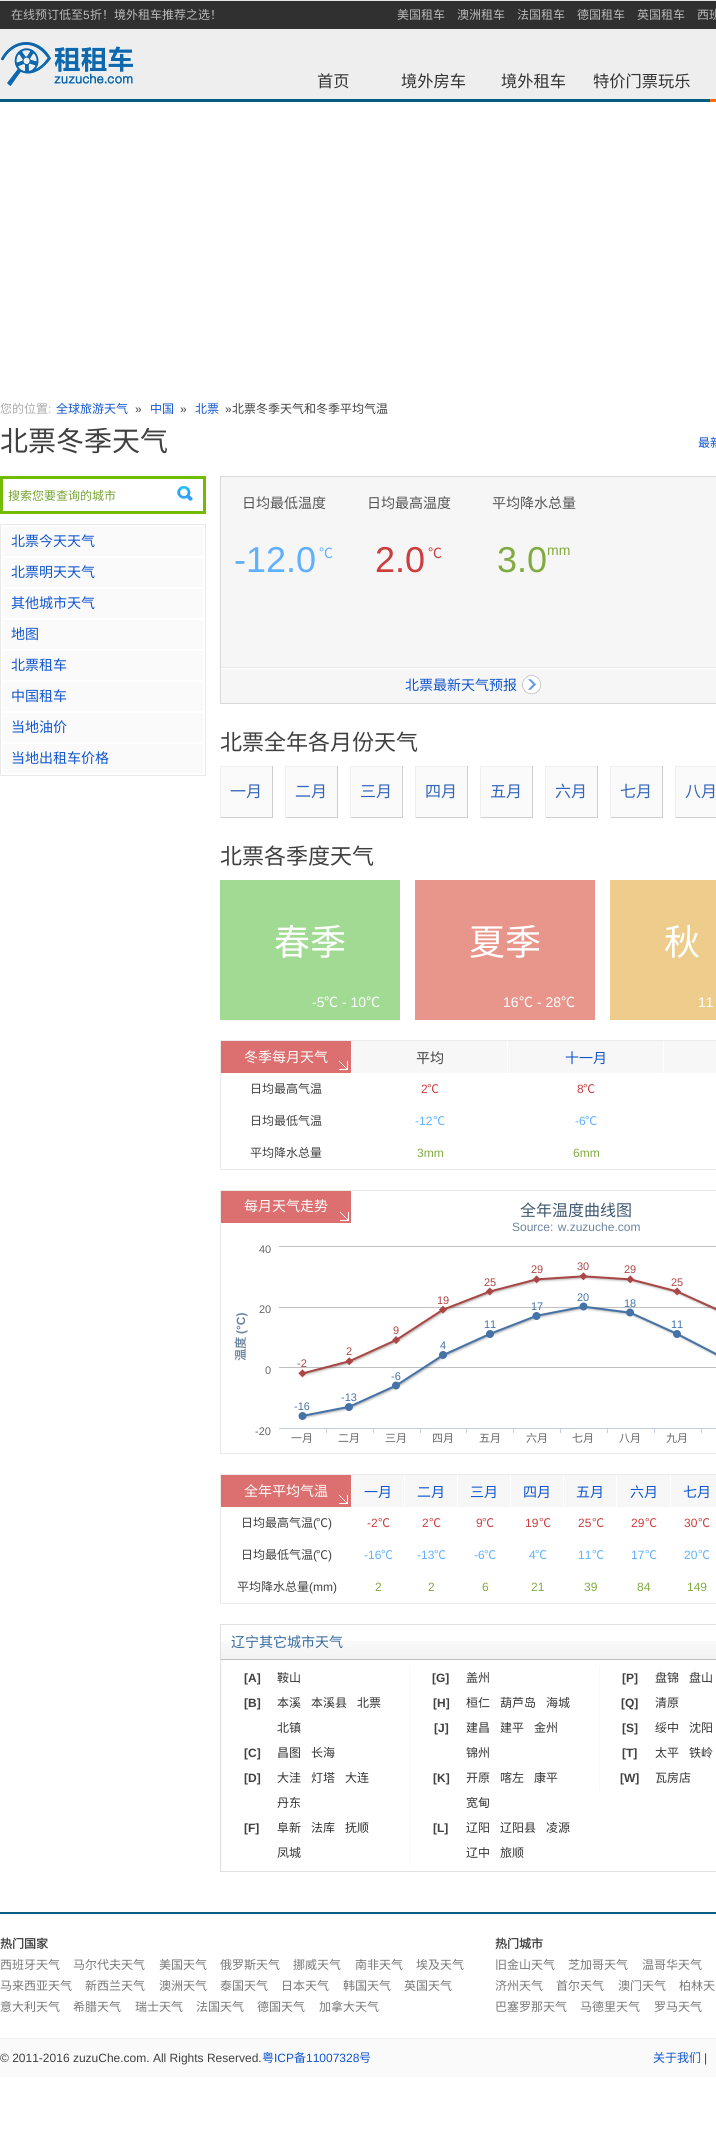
#include <cairo/cairo.h>
#include <math.h>
#include <stddef.h>


static void draw_spaced(cairo_t *cr, double x, double y, const char *s, double letter, double word) {
  cairo_move_to(cr, x, y);
  while (*s) {
    char ch[5] = {0};
    int n = 0;
    do ch[n++] = *s++; while ((*s & 0xC0) == 0x80);
    cairo_show_text(cr, ch);
    cairo_rel_move_to(cr, letter + word * (*ch == ' '), 0);
  }
}

static void draw_image(cairo_t *cr, const char *path, double x, double y, double w, double h) {
  cairo_surface_t *image = cairo_image_surface_create_from_png(path);
  cairo_save(cr);
  cairo_set_source_surface(cr, image, x, y);
  cairo_rectangle(cr, x, y, w, h);
  cairo_fill(cr);
  cairo_restore(cr);
  cairo_surface_destroy(image);
}

static void draw(cairo_t *cr) {
  cairo_set_source_rgb(cr, 1, 1, 1);
  cairo_paint(cr);
  cairo_set_source_rgb(cr, 238 / 255.0, 238 / 255.0, 238 / 255.0);
  cairo_rectangle(cr, 0, 29, 716, 70);
  cairo_fill(cr);
  cairo_set_source_rgb(cr, 229 / 255.0, 229 / 255.0, 229 / 255.0);
  cairo_rectangle(cr, 0, 0, 716, 1);
  cairo_fill(cr);
  cairo_set_source_rgb(cr, 7 / 255.0, 92 / 255.0, 129 / 255.0);
  cairo_rectangle(cr, 0, 99, 716, 3);
  cairo_fill(cr);
  cairo_set_source_rgb(cr, 48 / 255.0, 48 / 255.0, 48 / 255.0);
  cairo_rectangle(cr, 0, 1, 716, 28);
  cairo_fill(cr);
  draw_image(cr, "images/1.png", 1, 42, 132, 44);
  cairo_set_source_rgb(cr, 1, 108 / 255.0, 0);
  cairo_rectangle(cr, 710, 99, 6, 3);
  cairo_fill(cr);
  cairo_rectangle(cr, 1.5, 477.5, 203, 35);
  cairo_set_source_rgb(cr, 114 / 255.0, 188 / 255.0, 0);
  cairo_set_line_width(cr, 3);
  cairo_stroke(cr);
  draw_image(cr, "images/2.png", 177, 486, 16, 15);
  cairo_rectangle(cr, 0.5, 524.5, 205, 251);
  cairo_set_source_rgb(cr, 234 / 255.0, 234 / 255.0, 234 / 255.0);
  cairo_set_line_width(cr, 1);
  cairo_stroke(cr);
  cairo_set_source_rgb(cr, 250 / 255.0, 250 / 255.0, 250 / 255.0);
  cairo_rectangle(cr, 3, 527, 200, 29);
  cairo_fill(cr);
  cairo_rectangle(cr, 3, 558, 200, 29);
  cairo_fill(cr);
  cairo_rectangle(cr, 3, 589, 200, 29);
  cairo_fill(cr);
  cairo_rectangle(cr, 3, 620, 200, 29);
  cairo_fill(cr);
  cairo_rectangle(cr, 3, 651, 200, 29);
  cairo_fill(cr);
  cairo_rectangle(cr, 3, 682, 200, 29);
  cairo_fill(cr);
  cairo_rectangle(cr, 3, 713, 200, 29);
  cairo_fill(cr);
  cairo_rectangle(cr, 3, 744, 200, 29);
  cairo_fill(cr);
  cairo_set_source_rgb(cr, 246 / 255.0, 246 / 255.0, 246 / 255.0);
  cairo_rectangle(cr, 220.5, 476.5, 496, 227);
  cairo_fill_preserve(cr);
  cairo_set_source_rgb(cr, 217 / 255.0, 217 / 255.0, 217 / 255.0);
  cairo_stroke(cr);
  cairo_set_source_rgb(cr, 232 / 255.0, 232 / 255.0, 232 / 255.0);
  cairo_rectangle(cr, 221, 667, 495, 1);
  cairo_fill(cr);
  cairo_set_source_rgb(cr, 1, 1, 1);
  cairo_rectangle(cr, 221, 668, 495, 1);
  cairo_fill(cr);
  draw_image(cr, "images/3.png", 522, 675, 20, 20);
  cairo_set_source_rgb(cr, 250 / 255.0, 250 / 255.0, 250 / 255.0);
  cairo_rectangle(cr, 221, 767, 51, 50);
  cairo_fill(cr);
  cairo_set_source_rgb(cr, 239 / 255.0, 239 / 255.0, 239 / 255.0);
  cairo_rectangle(cr, 220, 766, 53, 1);
  cairo_fill(cr);
  cairo_set_source_rgb(cr, 207 / 255.0, 207 / 255.0, 207 / 255.0);
  cairo_rectangle(cr, 272, 766, 1, 52);
  cairo_fill(cr);
  cairo_rectangle(cr, 220, 817, 53, 1);
  cairo_fill(cr);
  cairo_set_source_rgb(cr, 239 / 255.0, 239 / 255.0, 239 / 255.0);
  cairo_rectangle(cr, 220, 766, 1, 52);
  cairo_fill(cr);
  cairo_set_source_rgb(cr, 250 / 255.0, 250 / 255.0, 250 / 255.0);
  cairo_rectangle(cr, 286, 767, 51, 50);
  cairo_fill(cr);
  cairo_set_source_rgb(cr, 239 / 255.0, 239 / 255.0, 239 / 255.0);
  cairo_rectangle(cr, 285, 766, 53, 1);
  cairo_fill(cr);
  cairo_set_source_rgb(cr, 207 / 255.0, 207 / 255.0, 207 / 255.0);
  cairo_rectangle(cr, 337, 766, 1, 52);
  cairo_fill(cr);
  cairo_rectangle(cr, 285, 817, 53, 1);
  cairo_fill(cr);
  cairo_set_source_rgb(cr, 239 / 255.0, 239 / 255.0, 239 / 255.0);
  cairo_rectangle(cr, 285, 766, 1, 52);
  cairo_fill(cr);
  cairo_set_source_rgb(cr, 250 / 255.0, 250 / 255.0, 250 / 255.0);
  cairo_rectangle(cr, 351, 767, 51, 50);
  cairo_fill(cr);
  cairo_set_source_rgb(cr, 239 / 255.0, 239 / 255.0, 239 / 255.0);
  cairo_rectangle(cr, 350, 766, 53, 1);
  cairo_fill(cr);
  cairo_set_source_rgb(cr, 207 / 255.0, 207 / 255.0, 207 / 255.0);
  cairo_rectangle(cr, 402, 766, 1, 52);
  cairo_fill(cr);
  cairo_rectangle(cr, 350, 817, 53, 1);
  cairo_fill(cr);
  cairo_set_source_rgb(cr, 239 / 255.0, 239 / 255.0, 239 / 255.0);
  cairo_rectangle(cr, 350, 766, 1, 52);
  cairo_fill(cr);
  cairo_set_source_rgb(cr, 250 / 255.0, 250 / 255.0, 250 / 255.0);
  cairo_rectangle(cr, 416, 767, 51, 50);
  cairo_fill(cr);
  cairo_set_source_rgb(cr, 239 / 255.0, 239 / 255.0, 239 / 255.0);
  cairo_rectangle(cr, 415, 766, 53, 1);
  cairo_fill(cr);
  cairo_set_source_rgb(cr, 207 / 255.0, 207 / 255.0, 207 / 255.0);
  cairo_rectangle(cr, 467, 766, 1, 52);
  cairo_fill(cr);
  cairo_rectangle(cr, 415, 817, 53, 1);
  cairo_fill(cr);
  cairo_set_source_rgb(cr, 239 / 255.0, 239 / 255.0, 239 / 255.0);
  cairo_rectangle(cr, 415, 766, 1, 52);
  cairo_fill(cr);
  cairo_set_source_rgb(cr, 250 / 255.0, 250 / 255.0, 250 / 255.0);
  cairo_rectangle(cr, 481, 767, 51, 50);
  cairo_fill(cr);
  cairo_set_source_rgb(cr, 239 / 255.0, 239 / 255.0, 239 / 255.0);
  cairo_rectangle(cr, 480, 766, 53, 1);
  cairo_fill(cr);
  cairo_set_source_rgb(cr, 207 / 255.0, 207 / 255.0, 207 / 255.0);
  cairo_rectangle(cr, 532, 766, 1, 52);
  cairo_fill(cr);
  cairo_rectangle(cr, 480, 817, 53, 1);
  cairo_fill(cr);
  cairo_set_source_rgb(cr, 239 / 255.0, 239 / 255.0, 239 / 255.0);
  cairo_rectangle(cr, 480, 766, 1, 52);
  cairo_fill(cr);
  cairo_set_source_rgb(cr, 250 / 255.0, 250 / 255.0, 250 / 255.0);
  cairo_rectangle(cr, 546, 767, 51, 50);
  cairo_fill(cr);
  cairo_set_source_rgb(cr, 239 / 255.0, 239 / 255.0, 239 / 255.0);
  cairo_rectangle(cr, 545, 766, 53, 1);
  cairo_fill(cr);
  cairo_set_source_rgb(cr, 207 / 255.0, 207 / 255.0, 207 / 255.0);
  cairo_rectangle(cr, 597, 766, 1, 52);
  cairo_fill(cr);
  cairo_rectangle(cr, 545, 817, 53, 1);
  cairo_fill(cr);
  cairo_set_source_rgb(cr, 239 / 255.0, 239 / 255.0, 239 / 255.0);
  cairo_rectangle(cr, 545, 766, 1, 52);
  cairo_fill(cr);
  cairo_set_source_rgb(cr, 250 / 255.0, 250 / 255.0, 250 / 255.0);
  cairo_rectangle(cr, 611, 767, 51, 50);
  cairo_fill(cr);
  cairo_set_source_rgb(cr, 239 / 255.0, 239 / 255.0, 239 / 255.0);
  cairo_rectangle(cr, 610, 766, 53, 1);
  cairo_fill(cr);
  cairo_set_source_rgb(cr, 207 / 255.0, 207 / 255.0, 207 / 255.0);
  cairo_rectangle(cr, 662, 766, 1, 52);
  cairo_fill(cr);
  cairo_rectangle(cr, 610, 817, 53, 1);
  cairo_fill(cr);
  cairo_set_source_rgb(cr, 239 / 255.0, 239 / 255.0, 239 / 255.0);
  cairo_rectangle(cr, 610, 766, 1, 52);
  cairo_fill(cr);
  cairo_set_source_rgb(cr, 250 / 255.0, 250 / 255.0, 250 / 255.0);
  cairo_rectangle(cr, 676, 767, 40, 50);
  cairo_fill(cr);
  cairo_set_source_rgb(cr, 239 / 255.0, 239 / 255.0, 239 / 255.0);
  cairo_rectangle(cr, 675, 766, 41, 1);
  cairo_fill(cr);
  cairo_set_source_rgb(cr, 207 / 255.0, 207 / 255.0, 207 / 255.0);
  cairo_rectangle(cr, 675, 817, 41, 1);
  cairo_fill(cr);
  cairo_set_source_rgb(cr, 239 / 255.0, 239 / 255.0, 239 / 255.0);
  cairo_rectangle(cr, 675, 766, 1, 52);
  cairo_fill(cr);
  cairo_set_source_rgb(cr, 161 / 255.0, 218 / 255.0, 147 / 255.0);
  cairo_rectangle(cr, 220, 880, 180, 140);
  cairo_fill(cr);
  cairo_set_source_rgb(cr, 232 / 255.0, 150 / 255.0, 139 / 255.0);
  cairo_rectangle(cr, 415, 880, 180, 140);
  cairo_fill(cr);
  cairo_set_source_rgb(cr, 237 / 255.0, 204 / 255.0, 140 / 255.0);
  cairo_rectangle(cr, 610, 880, 106, 140);
  cairo_fill(cr);
  cairo_rectangle(cr, 220.5, 1040.5, 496, 129);
  cairo_set_source_rgb(cr, 234 / 255.0, 234 / 255.0, 234 / 255.0);
  cairo_stroke(cr);
  cairo_set_source_rgb(cr, 220 / 255.0, 111 / 255.0, 111 / 255.0);
  cairo_rectangle(cr, 221, 1041, 130, 32);
  cairo_fill(cr);
  draw_image(cr, "images/4.png", 339, 1061, 9, 9);
  cairo_set_source_rgb(cr, 247 / 255.0, 247 / 255.0, 247 / 255.0);
  cairo_rectangle(cr, 352, 1041, 155, 32);
  cairo_fill(cr);
  cairo_rectangle(cr, 508, 1041, 155, 32);
  cairo_fill(cr);
  cairo_rectangle(cr, 664, 1041, 52, 32);
  cairo_fill(cr);
  cairo_rectangle(cr, 220.5, 1190.5, 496, 263);
  cairo_set_source_rgb(cr, 234 / 255.0, 234 / 255.0, 234 / 255.0);
  cairo_stroke(cr);
  cairo_set_source_rgb(cr, 220 / 255.0, 111 / 255.0, 111 / 255.0);
  cairo_rectangle(cr, 221, 1191, 130, 32);
  cairo_fill(cr);
  draw_image(cr, "images/4.png", 340, 1212, 9, 9);
  draw_image(cr, "images/5.png", 279, 1246, 437, 187);
  cairo_rectangle(cr, 220.5, 1474.5, 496, 129);
  cairo_set_source_rgb(cr, 234 / 255.0, 234 / 255.0, 234 / 255.0);
  cairo_stroke(cr);
  cairo_set_source_rgb(cr, 220 / 255.0, 111 / 255.0, 111 / 255.0);
  cairo_rectangle(cr, 221, 1475, 130, 32);
  cairo_fill(cr);
  draw_image(cr, "images/4.png", 339, 1495, 9, 9);
  cairo_set_source_rgb(cr, 247 / 255.0, 247 / 255.0, 247 / 255.0);
  cairo_rectangle(cr, 352, 1475, 52, 32);
  cairo_fill(cr);
  cairo_rectangle(cr, 405, 1475, 52, 32);
  cairo_fill(cr);
  cairo_rectangle(cr, 458, 1475, 52, 32);
  cairo_fill(cr);
  cairo_rectangle(cr, 511, 1475, 52, 32);
  cairo_fill(cr);
  cairo_rectangle(cr, 564, 1475, 52, 32);
  cairo_fill(cr);
  cairo_rectangle(cr, 617, 1475, 53, 32);
  cairo_fill(cr);
  cairo_rectangle(cr, 671, 1475, 45, 32);
  cairo_fill(cr);
  cairo_rectangle(cr, 220.5, 1624.5, 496, 247);
  cairo_set_source_rgb(cr, 224 / 255.0, 224 / 255.0, 224 / 255.0);
  cairo_stroke(cr);
  draw_image(cr, "images/6.png", 221, 1641, 495, 18);
  cairo_set_source_rgb(cr, 190 / 255.0, 190 / 255.0, 190 / 255.0);
  cairo_rectangle(cr, 221, 1659, 495, 1);
  cairo_fill(cr);
  cairo_set_source_rgb(cr, 249 / 255.0, 249 / 255.0, 249 / 255.0);
  cairo_rectangle(cr, 221, 1666, 1, 200);
  cairo_fill(cr);
  cairo_rectangle(cr, 410, 1666, 1, 200);
  cairo_fill(cr);
  cairo_rectangle(cr, 599, 1666, 1, 125);
  cairo_fill(cr);
  cairo_set_source_rgb(cr, 7 / 255.0, 92 / 255.0, 129 / 255.0);
  cairo_rectangle(cr, 0, 1912, 716, 2);
  cairo_fill(cr);
  cairo_set_source_rgb(cr, 250 / 255.0, 250 / 255.0, 250 / 255.0);
  cairo_rectangle(cr, 0, 2039, 716, 38);
  cairo_fill(cr);
  cairo_set_source_rgb(cr, 241 / 255.0, 241 / 255.0, 241 / 255.0);
  cairo_rectangle(cr, 0, 2038, 716, 1);
  cairo_fill(cr);
  cairo_select_font_face(cr, "Noto Sans CJK SC", CAIRO_FONT_SLANT_NORMAL, CAIRO_FONT_WEIGHT_NORMAL);
  cairo_set_font_size(cr, 12);
  cairo_set_source_rgb(cr, 187 / 255.0, 187 / 255.0, 187 / 255.0);
  cairo_move_to(cr, 11, 19);
  cairo_show_text(cr, "在线预订低至");
  cairo_select_font_face(cr, "Liberation Sans", CAIRO_FONT_SLANT_NORMAL, CAIRO_FONT_WEIGHT_NORMAL);
  cairo_move_to(cr, 83, 19);
  cairo_show_text(cr, "5");
  cairo_select_font_face(cr, "Noto Sans CJK SC", CAIRO_FONT_SLANT_NORMAL, CAIRO_FONT_WEIGHT_NORMAL);
  cairo_move_to(cr, 90, 19);
  cairo_show_text(cr, "折！境外租车推荐之选！");
  cairo_move_to(cr, 397, 19);
  cairo_show_text(cr, "美国租车");
  cairo_move_to(cr, 457, 19);
  cairo_show_text(cr, "澳洲租车");
  cairo_move_to(cr, 517, 19);
  cairo_show_text(cr, "法国租车");
  cairo_move_to(cr, 577, 19);
  cairo_show_text(cr, "德国租车");
  cairo_move_to(cr, 637, 19);
  cairo_show_text(cr, "英国租车");
  cairo_move_to(cr, 697, 19);
  cairo_show_text(cr, "西班");
  cairo_set_font_size(cr, 16.25);
  cairo_set_source_rgb(cr, 51 / 255.0, 51 / 255.0, 51 / 255.0);
  cairo_move_to(cr, 317, 87);
  cairo_show_text(cr, "首页");
  cairo_move_to(cr, 401, 87);
  cairo_show_text(cr, "境外房车");
  cairo_move_to(cr, 501, 87);
  cairo_show_text(cr, "境外租车");
  cairo_move_to(cr, 593, 87);
  cairo_show_text(cr, "特价门票玩乐");
  cairo_set_font_size(cr, 12);
  cairo_set_source_rgb(cr, 170 / 255.0, 170 / 255.0, 170 / 255.0);
  cairo_move_to(cr, 0, 413);
  cairo_show_text(cr, "您的位置");
  cairo_select_font_face(cr, "Liberation Sans", CAIRO_FONT_SLANT_NORMAL, CAIRO_FONT_WEIGHT_NORMAL);
  cairo_move_to(cr, 48, 413);
  cairo_show_text(cr, ":");
  cairo_select_font_face(cr, "Noto Sans CJK SC", CAIRO_FONT_SLANT_NORMAL, CAIRO_FONT_WEIGHT_NORMAL);
  cairo_set_source_rgb(cr, 17 / 255.0, 85 / 255.0, 204 / 255.0);
  cairo_move_to(cr, 56, 413);
  cairo_show_text(cr, "全球旅游天气");
  cairo_select_font_face(cr, "Liberation Sans", CAIRO_FONT_SLANT_NORMAL, CAIRO_FONT_WEIGHT_NORMAL);
  cairo_set_source_rgb(cr, 64 / 255.0, 64 / 255.0, 64 / 255.0);
  cairo_move_to(cr, 135, 413);
  cairo_show_text(cr, "»");
  cairo_select_font_face(cr, "Noto Sans CJK SC", CAIRO_FONT_SLANT_NORMAL, CAIRO_FONT_WEIGHT_NORMAL);
  cairo_set_source_rgb(cr, 17 / 255.0, 85 / 255.0, 204 / 255.0);
  cairo_move_to(cr, 150, 413);
  cairo_show_text(cr, "中国");
  cairo_select_font_face(cr, "Liberation Sans", CAIRO_FONT_SLANT_NORMAL, CAIRO_FONT_WEIGHT_NORMAL);
  cairo_set_source_rgb(cr, 64 / 255.0, 64 / 255.0, 64 / 255.0);
  cairo_move_to(cr, 180, 413);
  cairo_show_text(cr, "»");
  cairo_select_font_face(cr, "Noto Sans CJK SC", CAIRO_FONT_SLANT_NORMAL, CAIRO_FONT_WEIGHT_NORMAL);
  cairo_set_source_rgb(cr, 17 / 255.0, 85 / 255.0, 204 / 255.0);
  cairo_move_to(cr, 195, 413);
  cairo_show_text(cr, "北票");
  cairo_select_font_face(cr, "Liberation Sans", CAIRO_FONT_SLANT_NORMAL, CAIRO_FONT_WEIGHT_NORMAL);
  cairo_set_source_rgb(cr, 64 / 255.0, 64 / 255.0, 64 / 255.0);
  cairo_move_to(cr, 225, 413);
  cairo_show_text(cr, "»");
  cairo_select_font_face(cr, "Noto Sans CJK SC", CAIRO_FONT_SLANT_NORMAL, CAIRO_FONT_WEIGHT_NORMAL);
  cairo_move_to(cr, 232, 413);
  cairo_show_text(cr, "北票冬季天气和冬季平均气温");
  cairo_save(cr);
  cairo_rectangle(cr, 0, 428, 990, 1454);
  cairo_clip(cr);
  cairo_set_font_size(cr, 28);
  cairo_move_to(cr, 0, 451);
  cairo_show_text(cr, "北票冬季天气");
  cairo_restore(cr);
  cairo_set_source_rgb(cr, 17 / 255.0, 85 / 255.0, 204 / 255.0);
  cairo_move_to(cr, 698, 447);
  cairo_show_text(cr, "最新");
  cairo_set_source_rgb(cr, 118 / 255.0, 163 / 255.0, 50 / 255.0);
  cairo_move_to(cr, 8, 500);
  cairo_show_text(cr, "搜索您要查询的城市");
  cairo_set_font_size(cr, 14);
  cairo_set_source_rgb(cr, 17 / 255.0, 85 / 255.0, 204 / 255.0);
  cairo_move_to(cr, 11, 546);
  cairo_show_text(cr, "北票今天天气");
  cairo_move_to(cr, 11, 577);
  cairo_show_text(cr, "北票明天天气");
  cairo_move_to(cr, 11, 608);
  cairo_show_text(cr, "其他城市天气");
  cairo_move_to(cr, 11, 639);
  cairo_show_text(cr, "地图");
  cairo_move_to(cr, 11, 670);
  cairo_show_text(cr, "北票租车");
  cairo_move_to(cr, 11, 701);
  cairo_show_text(cr, "中国租车");
  cairo_move_to(cr, 11, 732);
  cairo_show_text(cr, "当地油价");
  cairo_move_to(cr, 11, 763);
  cairo_show_text(cr, "当地出租车价格");
  cairo_set_source_rgb(cr, 85 / 255.0, 85 / 255.0, 85 / 255.0);
  cairo_move_to(cr, 242, 508);
  cairo_show_text(cr, "日均最低温度");
  cairo_select_font_face(cr, "Liberation Sans", CAIRO_FONT_SLANT_NORMAL, CAIRO_FONT_WEIGHT_NORMAL);
  cairo_set_font_size(cr, 36);
  cairo_set_source_rgb(cr, 95 / 255.0, 176 / 255.0, 1);
  cairo_move_to(cr, 234, 572);
  cairo_show_text(cr, "-12.0");
  cairo_select_font_face(cr, "Noto Sans CJK SC", CAIRO_FONT_SLANT_NORMAL, CAIRO_FONT_WEIGHT_NORMAL);
  cairo_set_font_size(cr, 14);
  cairo_move_to(cr, 319, 558);
  cairo_show_text(cr, "℃");
  cairo_set_source_rgb(cr, 85 / 255.0, 85 / 255.0, 85 / 255.0);
  cairo_move_to(cr, 367, 508);
  cairo_show_text(cr, "日均最高温度");
  cairo_select_font_face(cr, "Liberation Sans", CAIRO_FONT_SLANT_NORMAL, CAIRO_FONT_WEIGHT_NORMAL);
  cairo_set_font_size(cr, 36);
  cairo_set_source_rgb(cr, 204 / 255.0, 61 / 255.0, 61 / 255.0);
  cairo_move_to(cr, 375, 572);
  cairo_show_text(cr, "2.0");
  cairo_select_font_face(cr, "Noto Sans CJK SC", CAIRO_FONT_SLANT_NORMAL, CAIRO_FONT_WEIGHT_NORMAL);
  cairo_set_font_size(cr, 14);
  cairo_move_to(cr, 428, 558);
  cairo_show_text(cr, "℃");
  cairo_set_source_rgb(cr, 85 / 255.0, 85 / 255.0, 85 / 255.0);
  cairo_move_to(cr, 492, 508);
  cairo_show_text(cr, "平均降水总量");
  cairo_select_font_face(cr, "Liberation Sans", CAIRO_FONT_SLANT_NORMAL, CAIRO_FONT_WEIGHT_NORMAL);
  cairo_set_font_size(cr, 36);
  cairo_set_source_rgb(cr, 129 / 255.0, 171 / 255.0, 65 / 255.0);
  cairo_move_to(cr, 497, 572);
  cairo_show_text(cr, "3.0");
  cairo_set_font_size(cr, 14);
  cairo_move_to(cr, 547, 555);
  cairo_show_text(cr, "mm");
  cairo_select_font_face(cr, "Noto Sans CJK SC", CAIRO_FONT_SLANT_NORMAL, CAIRO_FONT_WEIGHT_NORMAL);
  cairo_set_source_rgb(cr, 17 / 255.0, 85 / 255.0, 204 / 255.0);
  cairo_move_to(cr, 405, 690);
  cairo_show_text(cr, "北票最新天气预报");
  cairo_set_font_size(cr, 22);
  cairo_set_source_rgb(cr, 64 / 255.0, 64 / 255.0, 64 / 255.0);
  cairo_move_to(cr, 220, 750);
  cairo_show_text(cr, "北票全年各月份天气");
  cairo_set_font_size(cr, 16);
  cairo_set_source_rgb(cr, 51 / 255.0, 101 / 255.0, 186 / 255.0);
  cairo_move_to(cr, 230, 797);
  cairo_show_text(cr, "一月");
  cairo_move_to(cr, 295, 797);
  cairo_show_text(cr, "二月");
  cairo_move_to(cr, 360, 797);
  cairo_show_text(cr, "三月");
  cairo_move_to(cr, 425, 797);
  cairo_show_text(cr, "四月");
  cairo_move_to(cr, 490, 797);
  cairo_show_text(cr, "五月");
  cairo_move_to(cr, 555, 797);
  cairo_show_text(cr, "六月");
  cairo_move_to(cr, 620, 797);
  cairo_show_text(cr, "七月");
  cairo_move_to(cr, 685, 797);
  cairo_show_text(cr, "八月");
  cairo_set_font_size(cr, 22);
  cairo_set_source_rgb(cr, 64 / 255.0, 64 / 255.0, 64 / 255.0);
  cairo_move_to(cr, 220, 864);
  cairo_show_text(cr, "北票各季度天气");
  cairo_set_font_size(cr, 36);
  cairo_set_source_rgb(cr, 1, 1, 1);
  cairo_move_to(cr, 274, 955);
  cairo_show_text(cr, "春季");
  cairo_select_font_face(cr, "Liberation Sans", CAIRO_FONT_SLANT_NORMAL, CAIRO_FONT_WEIGHT_NORMAL);
  cairo_set_font_size(cr, 14);
  cairo_move_to(cr, 312, 1007);
  cairo_show_text(cr, "-5");
  cairo_select_font_face(cr, "Noto Sans CJK SC", CAIRO_FONT_SLANT_NORMAL, CAIRO_FONT_WEIGHT_NORMAL);
  cairo_move_to(cr, 324, 1007);
  cairo_show_text(cr, "℃");
  cairo_select_font_face(cr, "Liberation Sans", CAIRO_FONT_SLANT_NORMAL, CAIRO_FONT_WEIGHT_NORMAL);
  cairo_move_to(cr, 342, 1007);
  cairo_show_text(cr, "- 10");
  cairo_select_font_face(cr, "Noto Sans CJK SC", CAIRO_FONT_SLANT_NORMAL, CAIRO_FONT_WEIGHT_NORMAL);
  cairo_move_to(cr, 366, 1007);
  cairo_show_text(cr, "℃");
  cairo_set_font_size(cr, 36);
  cairo_move_to(cr, 469, 955);
  cairo_show_text(cr, "夏季");
  cairo_select_font_face(cr, "Liberation Sans", CAIRO_FONT_SLANT_NORMAL, CAIRO_FONT_WEIGHT_NORMAL);
  cairo_set_font_size(cr, 14);
  cairo_move_to(cr, 503, 1007);
  cairo_show_text(cr, "16");
  cairo_select_font_face(cr, "Noto Sans CJK SC", CAIRO_FONT_SLANT_NORMAL, CAIRO_FONT_WEIGHT_NORMAL);
  cairo_move_to(cr, 519, 1007);
  cairo_show_text(cr, "℃");
  cairo_select_font_face(cr, "Liberation Sans", CAIRO_FONT_SLANT_NORMAL, CAIRO_FONT_WEIGHT_NORMAL);
  cairo_move_to(cr, 537, 1007);
  cairo_show_text(cr, "- 28");
  cairo_select_font_face(cr, "Noto Sans CJK SC", CAIRO_FONT_SLANT_NORMAL, CAIRO_FONT_WEIGHT_NORMAL);
  cairo_move_to(cr, 561, 1007);
  cairo_show_text(cr, "℃");
  cairo_set_font_size(cr, 36);
  cairo_move_to(cr, 664, 955);
  cairo_show_text(cr, "秋");
  cairo_select_font_face(cr, "Liberation Sans", CAIRO_FONT_SLANT_NORMAL, CAIRO_FONT_WEIGHT_NORMAL);
  cairo_set_font_size(cr, 14);
  cairo_move_to(cr, 698, 1007);
  cairo_show_text(cr, "11");
  cairo_select_font_face(cr, "Noto Sans CJK SC", CAIRO_FONT_SLANT_NORMAL, CAIRO_FONT_WEIGHT_NORMAL);
  cairo_move_to(cr, 244, 1062);
  cairo_show_text(cr, "冬季每月天气");
  cairo_set_source_rgb(cr, 64 / 255.0, 64 / 255.0, 64 / 255.0);
  cairo_move_to(cr, 416, 1063);
  cairo_show_text(cr, "平均");
  cairo_set_source_rgb(cr, 17 / 255.0, 85 / 255.0, 204 / 255.0);
  cairo_move_to(cr, 565, 1063);
  cairo_show_text(cr, "十一月");
  cairo_set_font_size(cr, 12);
  cairo_set_source_rgb(cr, 64 / 255.0, 64 / 255.0, 64 / 255.0);
  cairo_move_to(cr, 250, 1093);
  cairo_show_text(cr, "日均最高气温");
  cairo_select_font_face(cr, "Liberation Sans", CAIRO_FONT_SLANT_NORMAL, CAIRO_FONT_WEIGHT_NORMAL);
  cairo_set_source_rgb(cr, 204 / 255.0, 61 / 255.0, 61 / 255.0);
  cairo_move_to(cr, 421, 1093);
  cairo_show_text(cr, "2");
  cairo_select_font_face(cr, "Noto Sans CJK SC", CAIRO_FONT_SLANT_NORMAL, CAIRO_FONT_WEIGHT_NORMAL);
  cairo_move_to(cr, 427, 1093);
  cairo_show_text(cr, "℃");
  cairo_select_font_face(cr, "Liberation Sans", CAIRO_FONT_SLANT_NORMAL, CAIRO_FONT_WEIGHT_NORMAL);
  cairo_move_to(cr, 577, 1093);
  cairo_show_text(cr, "8");
  cairo_select_font_face(cr, "Noto Sans CJK SC", CAIRO_FONT_SLANT_NORMAL, CAIRO_FONT_WEIGHT_NORMAL);
  cairo_move_to(cr, 583, 1093);
  cairo_show_text(cr, "℃");
  cairo_set_source_rgb(cr, 64 / 255.0, 64 / 255.0, 64 / 255.0);
  cairo_move_to(cr, 250, 1125);
  cairo_show_text(cr, "日均最低气温");
  cairo_select_font_face(cr, "Liberation Sans", CAIRO_FONT_SLANT_NORMAL, CAIRO_FONT_WEIGHT_NORMAL);
  cairo_set_source_rgb(cr, 95 / 255.0, 176 / 255.0, 1);
  cairo_move_to(cr, 415, 1125);
  cairo_show_text(cr, "-12");
  cairo_select_font_face(cr, "Noto Sans CJK SC", CAIRO_FONT_SLANT_NORMAL, CAIRO_FONT_WEIGHT_NORMAL);
  cairo_move_to(cr, 433, 1125);
  cairo_show_text(cr, "℃");
  cairo_select_font_face(cr, "Liberation Sans", CAIRO_FONT_SLANT_NORMAL, CAIRO_FONT_WEIGHT_NORMAL);
  cairo_move_to(cr, 575, 1125);
  cairo_show_text(cr, "-6");
  cairo_select_font_face(cr, "Noto Sans CJK SC", CAIRO_FONT_SLANT_NORMAL, CAIRO_FONT_WEIGHT_NORMAL);
  cairo_move_to(cr, 585, 1125);
  cairo_show_text(cr, "℃");
  cairo_set_source_rgb(cr, 64 / 255.0, 64 / 255.0, 64 / 255.0);
  cairo_move_to(cr, 250, 1157);
  cairo_show_text(cr, "平均降水总量");
  cairo_select_font_face(cr, "Liberation Sans", CAIRO_FONT_SLANT_NORMAL, CAIRO_FONT_WEIGHT_NORMAL);
  cairo_set_source_rgb(cr, 129 / 255.0, 171 / 255.0, 65 / 255.0);
  cairo_move_to(cr, 417, 1157);
  cairo_show_text(cr, "3mm");
  cairo_move_to(cr, 573, 1157);
  cairo_show_text(cr, "6mm");
  cairo_select_font_face(cr, "Noto Sans CJK SC", CAIRO_FONT_SLANT_NORMAL, CAIRO_FONT_WEIGHT_NORMAL);
  cairo_set_font_size(cr, 14);
  cairo_set_source_rgb(cr, 1, 1, 1);
  cairo_move_to(cr, 244, 1211);
  cairo_show_text(cr, "每月天气走势");
  cairo_set_font_size(cr, 16);
  cairo_set_source_rgb(cr, 62 / 255.0, 87 / 255.0, 111 / 255.0);
  cairo_move_to(cr, 520, 1216);
  cairo_show_text(cr, "全年温度曲线图");
  cairo_select_font_face(cr, "Liberation Sans", CAIRO_FONT_SLANT_NORMAL, CAIRO_FONT_WEIGHT_NORMAL);
  cairo_set_font_size(cr, 12);
  cairo_set_source_rgb(cr, 109 / 255.0, 134 / 255.0, 159 / 255.0);
  draw_spaced(cr, 512, 1231, "Source: w.zuzuche.com", 0, 1);
  cairo_set_font_size(cr, 11);
  cairo_set_source_rgb(cr, 102 / 255.0, 102 / 255.0, 102 / 255.0);
  cairo_move_to(cr, 259, 1253);
  cairo_show_text(cr, "40");
  cairo_set_source_rgb(cr, 170 / 255.0, 70 / 255.0, 67 / 255.0);
  cairo_move_to(cr, 531, 1273);
  cairo_show_text(cr, "29");
  cairo_move_to(cr, 577, 1270);
  cairo_show_text(cr, "30");
  cairo_move_to(cr, 624, 1273);
  cairo_show_text(cr, "29");
  cairo_move_to(cr, 484, 1286);
  cairo_show_text(cr, "25");
  cairo_move_to(cr, 671, 1286);
  cairo_show_text(cr, "25");
  cairo_set_source_rgb(cr, 102 / 255.0, 102 / 255.0, 102 / 255.0);
  cairo_move_to(cr, 259, 1313);
  cairo_show_text(cr, "20");
  cairo_set_source_rgb(cr, 170 / 255.0, 70 / 255.0, 67 / 255.0);
  cairo_move_to(cr, 437, 1304);
  cairo_show_text(cr, "19");
  cairo_set_source_rgb(cr, 69 / 255.0, 114 / 255.0, 167 / 255.0);
  cairo_move_to(cr, 531, 1310);
  cairo_show_text(cr, "17");
  cairo_move_to(cr, 577, 1301);
  cairo_show_text(cr, "20");
  cairo_move_to(cr, 624, 1307);
  cairo_show_text(cr, "18");
  cairo_select_font_face(cr, "Liberation Sans", CAIRO_FONT_SLANT_NORMAL, CAIRO_FONT_WEIGHT_BOLD);
  cairo_set_font_size(cr, 12);
  cairo_set_source_rgb(cr, 109 / 255.0, 134 / 255.0, 159 / 255.0);
  cairo_save(cr);
  cairo_translate(cr, 245, 1334);
  cairo_rotate(cr, -90 * M_PI / 180);
  cairo_move_to(cr, 0, 0);
  cairo_show_text(cr, "(°C)");
  cairo_restore(cr);
  cairo_select_font_face(cr, "Liberation Sans", CAIRO_FONT_SLANT_NORMAL, CAIRO_FONT_WEIGHT_NORMAL);
  cairo_set_font_size(cr, 11);
  cairo_set_source_rgb(cr, 69 / 255.0, 114 / 255.0, 167 / 255.0);
  cairo_move_to(cr, 484, 1328);
  cairo_show_text(cr, "11");
  cairo_move_to(cr, 671, 1328);
  cairo_show_text(cr, "11");
  cairo_set_source_rgb(cr, 170 / 255.0, 70 / 255.0, 67 / 255.0);
  cairo_move_to(cr, 393, 1334);
  cairo_show_text(cr, "9");
  cairo_select_font_face(cr, "Noto Sans CJK SC", CAIRO_FONT_SLANT_NORMAL, CAIRO_FONT_WEIGHT_BOLD);
  cairo_set_font_size(cr, 12);
  cairo_set_source_rgb(cr, 109 / 255.0, 134 / 255.0, 159 / 255.0);
  cairo_save(cr);
  cairo_translate(cr, 245, 1361);
  cairo_rotate(cr, -90 * M_PI / 180);
  cairo_move_to(cr, 0, 0);
  cairo_show_text(cr, "温度");
  cairo_restore(cr);
  cairo_select_font_face(cr, "Liberation Sans", CAIRO_FONT_SLANT_NORMAL, CAIRO_FONT_WEIGHT_NORMAL);
  cairo_set_font_size(cr, 11);
  cairo_set_source_rgb(cr, 69 / 255.0, 114 / 255.0, 167 / 255.0);
  cairo_move_to(cr, 440, 1349);
  cairo_show_text(cr, "4");
  cairo_set_source_rgb(cr, 170 / 255.0, 70 / 255.0, 67 / 255.0);
  cairo_move_to(cr, 346, 1355);
  cairo_show_text(cr, "2");
  cairo_move_to(cr, 297, 1367);
  cairo_show_text(cr, "-2");
  cairo_set_source_rgb(cr, 102 / 255.0, 102 / 255.0, 102 / 255.0);
  cairo_move_to(cr, 265, 1374);
  cairo_show_text(cr, "0");
  cairo_set_source_rgb(cr, 69 / 255.0, 114 / 255.0, 167 / 255.0);
  cairo_move_to(cr, 391, 1380);
  cairo_show_text(cr, "-6");
  cairo_move_to(cr, 341, 1401);
  cairo_show_text(cr, "-13");
  cairo_move_to(cr, 294, 1410);
  cairo_show_text(cr, "-16");
  cairo_set_source_rgb(cr, 102 / 255.0, 102 / 255.0, 102 / 255.0);
  cairo_move_to(cr, 255, 1435);
  cairo_show_text(cr, "-20");
  cairo_select_font_face(cr, "Noto Sans CJK SC", CAIRO_FONT_SLANT_NORMAL, CAIRO_FONT_WEIGHT_NORMAL);
  cairo_move_to(cr, 291, 1442);
  cairo_show_text(cr, "一月");
  cairo_move_to(cr, 338, 1442);
  cairo_show_text(cr, "二月");
  cairo_move_to(cr, 385, 1442);
  cairo_show_text(cr, "三月");
  cairo_move_to(cr, 432, 1442);
  cairo_show_text(cr, "四月");
  cairo_move_to(cr, 479, 1442);
  cairo_show_text(cr, "五月");
  cairo_move_to(cr, 526, 1442);
  cairo_show_text(cr, "六月");
  cairo_move_to(cr, 572, 1442);
  cairo_show_text(cr, "七月");
  cairo_move_to(cr, 619, 1442);
  cairo_show_text(cr, "八月");
  cairo_move_to(cr, 666, 1442);
  cairo_show_text(cr, "九月");
  cairo_set_font_size(cr, 14);
  cairo_set_source_rgb(cr, 1, 1, 1);
  cairo_move_to(cr, 244, 1496);
  cairo_show_text(cr, "全年平均气温");
  cairo_set_source_rgb(cr, 17 / 255.0, 85 / 255.0, 204 / 255.0);
  cairo_move_to(cr, 364, 1497);
  cairo_show_text(cr, "一月");
  cairo_move_to(cr, 417, 1497);
  cairo_show_text(cr, "二月");
  cairo_move_to(cr, 470, 1497);
  cairo_show_text(cr, "三月");
  cairo_move_to(cr, 523, 1497);
  cairo_show_text(cr, "四月");
  cairo_move_to(cr, 576, 1497);
  cairo_show_text(cr, "五月");
  cairo_move_to(cr, 630, 1497);
  cairo_show_text(cr, "六月");
  cairo_move_to(cr, 683, 1497);
  cairo_show_text(cr, "七月");
  cairo_set_font_size(cr, 12);
  cairo_set_source_rgb(cr, 64 / 255.0, 64 / 255.0, 64 / 255.0);
  cairo_move_to(cr, 241, 1527);
  cairo_show_text(cr, "日均最高气温");
  cairo_select_font_face(cr, "Liberation Sans", CAIRO_FONT_SLANT_NORMAL, CAIRO_FONT_WEIGHT_NORMAL);
  cairo_move_to(cr, 313, 1527);
  cairo_show_text(cr, "(");
  cairo_select_font_face(cr, "Noto Sans CJK SC", CAIRO_FONT_SLANT_NORMAL, CAIRO_FONT_WEIGHT_NORMAL);
  cairo_move_to(cr, 316, 1527);
  cairo_show_text(cr, "℃");
  cairo_select_font_face(cr, "Liberation Sans", CAIRO_FONT_SLANT_NORMAL, CAIRO_FONT_WEIGHT_NORMAL);
  cairo_move_to(cr, 328, 1527);
  cairo_show_text(cr, ")");
  cairo_set_source_rgb(cr, 204 / 255.0, 61 / 255.0, 61 / 255.0);
  cairo_move_to(cr, 367, 1527);
  cairo_show_text(cr, "-2");
  cairo_select_font_face(cr, "Noto Sans CJK SC", CAIRO_FONT_SLANT_NORMAL, CAIRO_FONT_WEIGHT_NORMAL);
  cairo_move_to(cr, 378, 1527);
  cairo_show_text(cr, "℃");
  cairo_select_font_face(cr, "Liberation Sans", CAIRO_FONT_SLANT_NORMAL, CAIRO_FONT_WEIGHT_NORMAL);
  cairo_move_to(cr, 422, 1527);
  cairo_show_text(cr, "2");
  cairo_select_font_face(cr, "Noto Sans CJK SC", CAIRO_FONT_SLANT_NORMAL, CAIRO_FONT_WEIGHT_NORMAL);
  cairo_move_to(cr, 429, 1527);
  cairo_show_text(cr, "℃");
  cairo_select_font_face(cr, "Liberation Sans", CAIRO_FONT_SLANT_NORMAL, CAIRO_FONT_WEIGHT_NORMAL);
  cairo_move_to(cr, 476, 1527);
  cairo_show_text(cr, "9");
  cairo_select_font_face(cr, "Noto Sans CJK SC", CAIRO_FONT_SLANT_NORMAL, CAIRO_FONT_WEIGHT_NORMAL);
  cairo_move_to(cr, 482, 1527);
  cairo_show_text(cr, "℃");
  cairo_select_font_face(cr, "Liberation Sans", CAIRO_FONT_SLANT_NORMAL, CAIRO_FONT_WEIGHT_NORMAL);
  cairo_move_to(cr, 525, 1527);
  cairo_show_text(cr, "19");
  cairo_select_font_face(cr, "Noto Sans CJK SC", CAIRO_FONT_SLANT_NORMAL, CAIRO_FONT_WEIGHT_NORMAL);
  cairo_move_to(cr, 539, 1527);
  cairo_show_text(cr, "℃");
  cairo_select_font_face(cr, "Liberation Sans", CAIRO_FONT_SLANT_NORMAL, CAIRO_FONT_WEIGHT_NORMAL);
  cairo_move_to(cr, 578, 1527);
  cairo_show_text(cr, "25");
  cairo_select_font_face(cr, "Noto Sans CJK SC", CAIRO_FONT_SLANT_NORMAL, CAIRO_FONT_WEIGHT_NORMAL);
  cairo_move_to(cr, 592, 1527);
  cairo_show_text(cr, "℃");
  cairo_select_font_face(cr, "Liberation Sans", CAIRO_FONT_SLANT_NORMAL, CAIRO_FONT_WEIGHT_NORMAL);
  cairo_move_to(cr, 631, 1527);
  cairo_show_text(cr, "29");
  cairo_select_font_face(cr, "Noto Sans CJK SC", CAIRO_FONT_SLANT_NORMAL, CAIRO_FONT_WEIGHT_NORMAL);
  cairo_move_to(cr, 645, 1527);
  cairo_show_text(cr, "℃");
  cairo_select_font_face(cr, "Liberation Sans", CAIRO_FONT_SLANT_NORMAL, CAIRO_FONT_WEIGHT_NORMAL);
  cairo_move_to(cr, 684, 1527);
  cairo_show_text(cr, "30");
  cairo_select_font_face(cr, "Noto Sans CJK SC", CAIRO_FONT_SLANT_NORMAL, CAIRO_FONT_WEIGHT_NORMAL);
  cairo_move_to(cr, 698, 1527);
  cairo_show_text(cr, "℃");
  cairo_set_source_rgb(cr, 64 / 255.0, 64 / 255.0, 64 / 255.0);
  cairo_move_to(cr, 241, 1559);
  cairo_show_text(cr, "日均最低气温");
  cairo_select_font_face(cr, "Liberation Sans", CAIRO_FONT_SLANT_NORMAL, CAIRO_FONT_WEIGHT_NORMAL);
  cairo_move_to(cr, 313, 1559);
  cairo_show_text(cr, "(");
  cairo_select_font_face(cr, "Noto Sans CJK SC", CAIRO_FONT_SLANT_NORMAL, CAIRO_FONT_WEIGHT_NORMAL);
  cairo_move_to(cr, 316, 1559);
  cairo_show_text(cr, "℃");
  cairo_select_font_face(cr, "Liberation Sans", CAIRO_FONT_SLANT_NORMAL, CAIRO_FONT_WEIGHT_NORMAL);
  cairo_move_to(cr, 328, 1559);
  cairo_show_text(cr, ")");
  cairo_set_source_rgb(cr, 95 / 255.0, 176 / 255.0, 1);
  cairo_move_to(cr, 364, 1559);
  cairo_show_text(cr, "-16");
  cairo_select_font_face(cr, "Noto Sans CJK SC", CAIRO_FONT_SLANT_NORMAL, CAIRO_FONT_WEIGHT_NORMAL);
  cairo_move_to(cr, 381, 1559);
  cairo_show_text(cr, "℃");
  cairo_select_font_face(cr, "Liberation Sans", CAIRO_FONT_SLANT_NORMAL, CAIRO_FONT_WEIGHT_NORMAL);
  cairo_move_to(cr, 417, 1559);
  cairo_show_text(cr, "-13");
  cairo_select_font_face(cr, "Noto Sans CJK SC", CAIRO_FONT_SLANT_NORMAL, CAIRO_FONT_WEIGHT_NORMAL);
  cairo_move_to(cr, 434, 1559);
  cairo_show_text(cr, "℃");
  cairo_select_font_face(cr, "Liberation Sans", CAIRO_FONT_SLANT_NORMAL, CAIRO_FONT_WEIGHT_NORMAL);
  cairo_move_to(cr, 474, 1559);
  cairo_show_text(cr, "-6");
  cairo_select_font_face(cr, "Noto Sans CJK SC", CAIRO_FONT_SLANT_NORMAL, CAIRO_FONT_WEIGHT_NORMAL);
  cairo_move_to(cr, 484, 1559);
  cairo_show_text(cr, "℃");
  cairo_select_font_face(cr, "Liberation Sans", CAIRO_FONT_SLANT_NORMAL, CAIRO_FONT_WEIGHT_NORMAL);
  cairo_move_to(cr, 529, 1559);
  cairo_show_text(cr, "4");
  cairo_select_font_face(cr, "Noto Sans CJK SC", CAIRO_FONT_SLANT_NORMAL, CAIRO_FONT_WEIGHT_NORMAL);
  cairo_move_to(cr, 535, 1559);
  cairo_show_text(cr, "℃");
  cairo_select_font_face(cr, "Liberation Sans", CAIRO_FONT_SLANT_NORMAL, CAIRO_FONT_WEIGHT_NORMAL);
  cairo_move_to(cr, 578, 1559);
  cairo_show_text(cr, "11");
  cairo_select_font_face(cr, "Noto Sans CJK SC", CAIRO_FONT_SLANT_NORMAL, CAIRO_FONT_WEIGHT_NORMAL);
  cairo_move_to(cr, 592, 1559);
  cairo_show_text(cr, "℃");
  cairo_select_font_face(cr, "Liberation Sans", CAIRO_FONT_SLANT_NORMAL, CAIRO_FONT_WEIGHT_NORMAL);
  cairo_move_to(cr, 631, 1559);
  cairo_show_text(cr, "17");
  cairo_select_font_face(cr, "Noto Sans CJK SC", CAIRO_FONT_SLANT_NORMAL, CAIRO_FONT_WEIGHT_NORMAL);
  cairo_move_to(cr, 645, 1559);
  cairo_show_text(cr, "℃");
  cairo_select_font_face(cr, "Liberation Sans", CAIRO_FONT_SLANT_NORMAL, CAIRO_FONT_WEIGHT_NORMAL);
  cairo_move_to(cr, 684, 1559);
  cairo_show_text(cr, "20");
  cairo_select_font_face(cr, "Noto Sans CJK SC", CAIRO_FONT_SLANT_NORMAL, CAIRO_FONT_WEIGHT_NORMAL);
  cairo_move_to(cr, 698, 1559);
  cairo_show_text(cr, "℃");
  cairo_set_source_rgb(cr, 64 / 255.0, 64 / 255.0, 64 / 255.0);
  cairo_move_to(cr, 237, 1591);
  cairo_show_text(cr, "平均降水总量");
  cairo_select_font_face(cr, "Liberation Sans", CAIRO_FONT_SLANT_NORMAL, CAIRO_FONT_WEIGHT_NORMAL);
  cairo_move_to(cr, 309, 1591);
  cairo_show_text(cr, "(mm)");
  cairo_set_source_rgb(cr, 129 / 255.0, 171 / 255.0, 65 / 255.0);
  cairo_move_to(cr, 375, 1591);
  cairo_show_text(cr, "2");
  cairo_move_to(cr, 428, 1591);
  cairo_show_text(cr, "2");
  cairo_move_to(cr, 482, 1591);
  cairo_show_text(cr, "6");
  cairo_move_to(cr, 531, 1591);
  cairo_show_text(cr, "21");
  cairo_move_to(cr, 584, 1591);
  cairo_show_text(cr, "39");
  cairo_move_to(cr, 637, 1591);
  cairo_show_text(cr, "84");
  cairo_move_to(cr, 687, 1591);
  cairo_show_text(cr, "149");
  cairo_select_font_face(cr, "Noto Sans CJK SC", CAIRO_FONT_SLANT_NORMAL, CAIRO_FONT_WEIGHT_NORMAL);
  cairo_set_font_size(cr, 14);
  cairo_set_source_rgb(cr, 54 / 255.0, 106 / 255.0, 158 / 255.0);
  cairo_move_to(cr, 231, 1647);
  cairo_show_text(cr, "辽宁其它城市天气");
  cairo_select_font_face(cr, "Liberation Sans", CAIRO_FONT_SLANT_NORMAL, CAIRO_FONT_WEIGHT_BOLD);
  cairo_set_font_size(cr, 12);
  cairo_set_source_rgb(cr, 64 / 255.0, 64 / 255.0, 64 / 255.0);
  cairo_move_to(cr, 244, 1682);
  cairo_show_text(cr, "[A]");
  cairo_select_font_face(cr, "Noto Sans CJK SC", CAIRO_FONT_SLANT_NORMAL, CAIRO_FONT_WEIGHT_NORMAL);
  cairo_set_source_rgb(cr, 51 / 255.0, 51 / 255.0, 51 / 255.0);
  cairo_move_to(cr, 277, 1682);
  cairo_show_text(cr, "鞍山");
  cairo_select_font_face(cr, "Liberation Sans", CAIRO_FONT_SLANT_NORMAL, CAIRO_FONT_WEIGHT_BOLD);
  cairo_set_source_rgb(cr, 64 / 255.0, 64 / 255.0, 64 / 255.0);
  cairo_move_to(cr, 244, 1707);
  cairo_show_text(cr, "[B]");
  cairo_select_font_face(cr, "Noto Sans CJK SC", CAIRO_FONT_SLANT_NORMAL, CAIRO_FONT_WEIGHT_NORMAL);
  cairo_set_source_rgb(cr, 51 / 255.0, 51 / 255.0, 51 / 255.0);
  cairo_move_to(cr, 277, 1707);
  cairo_show_text(cr, "本溪");
  cairo_move_to(cr, 311, 1707);
  cairo_show_text(cr, "本溪县");
  cairo_move_to(cr, 357, 1707);
  cairo_show_text(cr, "北票");
  cairo_move_to(cr, 277, 1732);
  cairo_show_text(cr, "北镇");
  cairo_select_font_face(cr, "Liberation Sans", CAIRO_FONT_SLANT_NORMAL, CAIRO_FONT_WEIGHT_BOLD);
  cairo_set_source_rgb(cr, 64 / 255.0, 64 / 255.0, 64 / 255.0);
  cairo_move_to(cr, 244, 1757);
  cairo_show_text(cr, "[C]");
  cairo_select_font_face(cr, "Noto Sans CJK SC", CAIRO_FONT_SLANT_NORMAL, CAIRO_FONT_WEIGHT_NORMAL);
  cairo_set_source_rgb(cr, 51 / 255.0, 51 / 255.0, 51 / 255.0);
  cairo_move_to(cr, 277, 1757);
  cairo_show_text(cr, "昌图");
  cairo_move_to(cr, 311, 1757);
  cairo_show_text(cr, "长海");
  cairo_select_font_face(cr, "Liberation Sans", CAIRO_FONT_SLANT_NORMAL, CAIRO_FONT_WEIGHT_BOLD);
  cairo_set_source_rgb(cr, 64 / 255.0, 64 / 255.0, 64 / 255.0);
  cairo_move_to(cr, 244, 1782);
  cairo_show_text(cr, "[D]");
  cairo_select_font_face(cr, "Noto Sans CJK SC", CAIRO_FONT_SLANT_NORMAL, CAIRO_FONT_WEIGHT_NORMAL);
  cairo_set_source_rgb(cr, 51 / 255.0, 51 / 255.0, 51 / 255.0);
  cairo_move_to(cr, 277, 1782);
  cairo_show_text(cr, "大洼");
  cairo_move_to(cr, 311, 1782);
  cairo_show_text(cr, "灯塔");
  cairo_move_to(cr, 345, 1782);
  cairo_show_text(cr, "大连");
  cairo_move_to(cr, 277, 1807);
  cairo_show_text(cr, "丹东");
  cairo_select_font_face(cr, "Liberation Sans", CAIRO_FONT_SLANT_NORMAL, CAIRO_FONT_WEIGHT_BOLD);
  cairo_set_source_rgb(cr, 64 / 255.0, 64 / 255.0, 64 / 255.0);
  cairo_move_to(cr, 244, 1832);
  cairo_show_text(cr, "[F]");
  cairo_select_font_face(cr, "Noto Sans CJK SC", CAIRO_FONT_SLANT_NORMAL, CAIRO_FONT_WEIGHT_NORMAL);
  cairo_set_source_rgb(cr, 51 / 255.0, 51 / 255.0, 51 / 255.0);
  cairo_move_to(cr, 277, 1832);
  cairo_show_text(cr, "阜新");
  cairo_move_to(cr, 311, 1832);
  cairo_show_text(cr, "法库");
  cairo_move_to(cr, 345, 1832);
  cairo_show_text(cr, "抚顺");
  cairo_move_to(cr, 277, 1857);
  cairo_show_text(cr, "凤城");
  cairo_select_font_face(cr, "Liberation Sans", CAIRO_FONT_SLANT_NORMAL, CAIRO_FONT_WEIGHT_BOLD);
  cairo_set_source_rgb(cr, 64 / 255.0, 64 / 255.0, 64 / 255.0);
  cairo_move_to(cr, 432, 1682);
  cairo_show_text(cr, "[G]");
  cairo_select_font_face(cr, "Noto Sans CJK SC", CAIRO_FONT_SLANT_NORMAL, CAIRO_FONT_WEIGHT_NORMAL);
  cairo_set_source_rgb(cr, 51 / 255.0, 51 / 255.0, 51 / 255.0);
  cairo_move_to(cr, 466, 1682);
  cairo_show_text(cr, "盖州");
  cairo_select_font_face(cr, "Liberation Sans", CAIRO_FONT_SLANT_NORMAL, CAIRO_FONT_WEIGHT_BOLD);
  cairo_set_source_rgb(cr, 64 / 255.0, 64 / 255.0, 64 / 255.0);
  cairo_move_to(cr, 433, 1707);
  cairo_show_text(cr, "[H]");
  cairo_select_font_face(cr, "Noto Sans CJK SC", CAIRO_FONT_SLANT_NORMAL, CAIRO_FONT_WEIGHT_NORMAL);
  cairo_set_source_rgb(cr, 51 / 255.0, 51 / 255.0, 51 / 255.0);
  cairo_move_to(cr, 466, 1707);
  cairo_show_text(cr, "桓仁");
  cairo_move_to(cr, 500, 1707);
  cairo_show_text(cr, "葫芦岛");
  cairo_move_to(cr, 546, 1707);
  cairo_show_text(cr, "海城");
  cairo_select_font_face(cr, "Liberation Sans", CAIRO_FONT_SLANT_NORMAL, CAIRO_FONT_WEIGHT_BOLD);
  cairo_set_source_rgb(cr, 64 / 255.0, 64 / 255.0, 64 / 255.0);
  cairo_move_to(cr, 434, 1732);
  cairo_show_text(cr, "[J]");
  cairo_select_font_face(cr, "Noto Sans CJK SC", CAIRO_FONT_SLANT_NORMAL, CAIRO_FONT_WEIGHT_NORMAL);
  cairo_set_source_rgb(cr, 51 / 255.0, 51 / 255.0, 51 / 255.0);
  cairo_move_to(cr, 466, 1732);
  cairo_show_text(cr, "建昌");
  cairo_move_to(cr, 500, 1732);
  cairo_show_text(cr, "建平");
  cairo_move_to(cr, 534, 1732);
  cairo_show_text(cr, "金州");
  cairo_move_to(cr, 466, 1757);
  cairo_show_text(cr, "锦州");
  cairo_select_font_face(cr, "Liberation Sans", CAIRO_FONT_SLANT_NORMAL, CAIRO_FONT_WEIGHT_BOLD);
  cairo_set_source_rgb(cr, 64 / 255.0, 64 / 255.0, 64 / 255.0);
  cairo_move_to(cr, 433, 1782);
  cairo_show_text(cr, "[K]");
  cairo_select_font_face(cr, "Noto Sans CJK SC", CAIRO_FONT_SLANT_NORMAL, CAIRO_FONT_WEIGHT_NORMAL);
  cairo_set_source_rgb(cr, 51 / 255.0, 51 / 255.0, 51 / 255.0);
  cairo_move_to(cr, 466, 1782);
  cairo_show_text(cr, "开原");
  cairo_move_to(cr, 500, 1782);
  cairo_show_text(cr, "喀左");
  cairo_move_to(cr, 534, 1782);
  cairo_show_text(cr, "康平");
  cairo_move_to(cr, 466, 1807);
  cairo_show_text(cr, "宽甸");
  cairo_select_font_face(cr, "Liberation Sans", CAIRO_FONT_SLANT_NORMAL, CAIRO_FONT_WEIGHT_BOLD);
  cairo_set_source_rgb(cr, 64 / 255.0, 64 / 255.0, 64 / 255.0);
  cairo_move_to(cr, 433, 1832);
  cairo_show_text(cr, "[L]");
  cairo_select_font_face(cr, "Noto Sans CJK SC", CAIRO_FONT_SLANT_NORMAL, CAIRO_FONT_WEIGHT_NORMAL);
  cairo_set_source_rgb(cr, 51 / 255.0, 51 / 255.0, 51 / 255.0);
  cairo_move_to(cr, 466, 1832);
  cairo_show_text(cr, "辽阳");
  cairo_move_to(cr, 500, 1832);
  cairo_show_text(cr, "辽阳县");
  cairo_move_to(cr, 546, 1832);
  cairo_show_text(cr, "凌源");
  cairo_move_to(cr, 466, 1857);
  cairo_show_text(cr, "辽中");
  cairo_move_to(cr, 500, 1857);
  cairo_show_text(cr, "旅顺");
  cairo_select_font_face(cr, "Liberation Sans", CAIRO_FONT_SLANT_NORMAL, CAIRO_FONT_WEIGHT_BOLD);
  cairo_set_source_rgb(cr, 64 / 255.0, 64 / 255.0, 64 / 255.0);
  cairo_move_to(cr, 622, 1682);
  cairo_show_text(cr, "[P]");
  cairo_select_font_face(cr, "Noto Sans CJK SC", CAIRO_FONT_SLANT_NORMAL, CAIRO_FONT_WEIGHT_NORMAL);
  cairo_set_source_rgb(cr, 51 / 255.0, 51 / 255.0, 51 / 255.0);
  cairo_move_to(cr, 655, 1682);
  cairo_show_text(cr, "盘锦");
  cairo_move_to(cr, 689, 1682);
  cairo_show_text(cr, "盘山");
  cairo_select_font_face(cr, "Liberation Sans", CAIRO_FONT_SLANT_NORMAL, CAIRO_FONT_WEIGHT_BOLD);
  cairo_set_source_rgb(cr, 64 / 255.0, 64 / 255.0, 64 / 255.0);
  cairo_move_to(cr, 621, 1707);
  cairo_show_text(cr, "[Q]");
  cairo_select_font_face(cr, "Noto Sans CJK SC", CAIRO_FONT_SLANT_NORMAL, CAIRO_FONT_WEIGHT_NORMAL);
  cairo_set_source_rgb(cr, 51 / 255.0, 51 / 255.0, 51 / 255.0);
  cairo_move_to(cr, 655, 1707);
  cairo_show_text(cr, "清原");
  cairo_select_font_face(cr, "Liberation Sans", CAIRO_FONT_SLANT_NORMAL, CAIRO_FONT_WEIGHT_BOLD);
  cairo_set_source_rgb(cr, 64 / 255.0, 64 / 255.0, 64 / 255.0);
  cairo_move_to(cr, 622, 1732);
  cairo_show_text(cr, "[S]");
  cairo_select_font_face(cr, "Noto Sans CJK SC", CAIRO_FONT_SLANT_NORMAL, CAIRO_FONT_WEIGHT_NORMAL);
  cairo_set_source_rgb(cr, 51 / 255.0, 51 / 255.0, 51 / 255.0);
  cairo_move_to(cr, 655, 1732);
  cairo_show_text(cr, "绥中");
  cairo_move_to(cr, 689, 1732);
  cairo_show_text(cr, "沈阳");
  cairo_select_font_face(cr, "Liberation Sans", CAIRO_FONT_SLANT_NORMAL, CAIRO_FONT_WEIGHT_BOLD);
  cairo_set_source_rgb(cr, 64 / 255.0, 64 / 255.0, 64 / 255.0);
  cairo_move_to(cr, 622, 1757);
  cairo_show_text(cr, "[T]");
  cairo_select_font_face(cr, "Noto Sans CJK SC", CAIRO_FONT_SLANT_NORMAL, CAIRO_FONT_WEIGHT_NORMAL);
  cairo_set_source_rgb(cr, 51 / 255.0, 51 / 255.0, 51 / 255.0);
  cairo_move_to(cr, 655, 1757);
  cairo_show_text(cr, "太平");
  cairo_move_to(cr, 689, 1757);
  cairo_show_text(cr, "铁岭");
  cairo_select_font_face(cr, "Liberation Sans", CAIRO_FONT_SLANT_NORMAL, CAIRO_FONT_WEIGHT_BOLD);
  cairo_set_source_rgb(cr, 64 / 255.0, 64 / 255.0, 64 / 255.0);
  cairo_move_to(cr, 620, 1782);
  cairo_show_text(cr, "[W]");
  cairo_select_font_face(cr, "Noto Sans CJK SC", CAIRO_FONT_SLANT_NORMAL, CAIRO_FONT_WEIGHT_NORMAL);
  cairo_set_source_rgb(cr, 51 / 255.0, 51 / 255.0, 51 / 255.0);
  cairo_move_to(cr, 655, 1782);
  cairo_show_text(cr, "瓦房店");
  cairo_select_font_face(cr, "Noto Sans CJK SC", CAIRO_FONT_SLANT_NORMAL, CAIRO_FONT_WEIGHT_BOLD);
  cairo_set_source_rgb(cr, 64 / 255.0, 64 / 255.0, 64 / 255.0);
  cairo_move_to(cr, 0, 1948);
  cairo_show_text(cr, "热门国家");
  cairo_select_font_face(cr, "Noto Sans CJK SC", CAIRO_FONT_SLANT_NORMAL, CAIRO_FONT_WEIGHT_NORMAL);
  cairo_set_source_rgb(cr, 119 / 255.0, 119 / 255.0, 119 / 255.0);
  cairo_move_to(cr, 0, 1969);
  cairo_show_text(cr, "西班牙天气");
  cairo_move_to(cr, 73, 1969);
  cairo_show_text(cr, "马尔代夫天气");
  cairo_move_to(cr, 159, 1969);
  cairo_show_text(cr, "美国天气");
  cairo_move_to(cr, 220, 1969);
  cairo_show_text(cr, "俄罗斯天气");
  cairo_move_to(cr, 293, 1969);
  cairo_show_text(cr, "挪威天气");
  cairo_move_to(cr, 355, 1969);
  cairo_show_text(cr, "南非天气");
  cairo_move_to(cr, 416, 1969);
  cairo_show_text(cr, "埃及天气");
  cairo_move_to(cr, 0, 1990);
  cairo_show_text(cr, "马来西亚天气");
  cairo_move_to(cr, 85, 1990);
  cairo_show_text(cr, "新西兰天气");
  cairo_move_to(cr, 159, 1990);
  cairo_show_text(cr, "澳洲天气");
  cairo_move_to(cr, 220, 1990);
  cairo_show_text(cr, "泰国天气");
  cairo_move_to(cr, 281, 1990);
  cairo_show_text(cr, "日本天气");
  cairo_move_to(cr, 343, 1990);
  cairo_show_text(cr, "韩国天气");
  cairo_move_to(cr, 404, 1990);
  cairo_show_text(cr, "英国天气");
  cairo_move_to(cr, 0, 2011);
  cairo_show_text(cr, "意大利天气");
  cairo_move_to(cr, 73, 2011);
  cairo_show_text(cr, "希腊天气");
  cairo_move_to(cr, 135, 2011);
  cairo_show_text(cr, "瑞士天气");
  cairo_move_to(cr, 196, 2011);
  cairo_show_text(cr, "法国天气");
  cairo_move_to(cr, 257, 2011);
  cairo_show_text(cr, "德国天气");
  cairo_move_to(cr, 319, 2011);
  cairo_show_text(cr, "加拿大天气");
  cairo_select_font_face(cr, "Noto Sans CJK SC", CAIRO_FONT_SLANT_NORMAL, CAIRO_FONT_WEIGHT_BOLD);
  cairo_set_source_rgb(cr, 64 / 255.0, 64 / 255.0, 64 / 255.0);
  cairo_move_to(cr, 495, 1948);
  cairo_show_text(cr, "热门城市");
  cairo_select_font_face(cr, "Noto Sans CJK SC", CAIRO_FONT_SLANT_NORMAL, CAIRO_FONT_WEIGHT_NORMAL);
  cairo_set_source_rgb(cr, 119 / 255.0, 119 / 255.0, 119 / 255.0);
  cairo_move_to(cr, 495, 1969);
  cairo_show_text(cr, "旧金山天气");
  cairo_move_to(cr, 568, 1969);
  cairo_show_text(cr, "芝加哥天气");
  cairo_move_to(cr, 642, 1969);
  cairo_show_text(cr, "温哥华天气");
  cairo_move_to(cr, 495, 1990);
  cairo_show_text(cr, "济州天气");
  cairo_move_to(cr, 556, 1990);
  cairo_show_text(cr, "首尔天气");
  cairo_move_to(cr, 618, 1990);
  cairo_show_text(cr, "澳门天气");
  cairo_move_to(cr, 679, 1990);
  cairo_show_text(cr, "柏林天");
  cairo_move_to(cr, 495, 2011);
  cairo_show_text(cr, "巴塞罗那天气");
  cairo_move_to(cr, 580, 2011);
  cairo_show_text(cr, "马德里天气");
  cairo_move_to(cr, 654, 2011);
  cairo_show_text(cr, "罗马天气");
  cairo_select_font_face(cr, "Liberation Sans", CAIRO_FONT_SLANT_NORMAL, CAIRO_FONT_WEIGHT_NORMAL);
  cairo_set_source_rgb(cr, 64 / 255.0, 64 / 255.0, 64 / 255.0);
  cairo_move_to(cr, 0, 2062);
  cairo_show_text(cr, "© 2011-2016 zuzuChe.com. All Rights Reserved.");
  cairo_select_font_face(cr, "Noto Sans CJK SC", CAIRO_FONT_SLANT_NORMAL, CAIRO_FONT_WEIGHT_NORMAL);
  cairo_set_source_rgb(cr, 17 / 255.0, 85 / 255.0, 204 / 255.0);
  cairo_move_to(cr, 262, 2062);
  cairo_show_text(cr, "粤");
  cairo_select_font_face(cr, "Liberation Sans", CAIRO_FONT_SLANT_NORMAL, CAIRO_FONT_WEIGHT_NORMAL);
  cairo_move_to(cr, 274, 2062);
  cairo_show_text(cr, "ICP");
  cairo_select_font_face(cr, "Noto Sans CJK SC", CAIRO_FONT_SLANT_NORMAL, CAIRO_FONT_WEIGHT_NORMAL);
  cairo_move_to(cr, 294, 2062);
  cairo_show_text(cr, "备");
  cairo_select_font_face(cr, "Liberation Sans", CAIRO_FONT_SLANT_NORMAL, CAIRO_FONT_WEIGHT_NORMAL);
  cairo_move_to(cr, 306, 2062);
  cairo_show_text(cr, "11007328");
  cairo_select_font_face(cr, "Noto Sans CJK SC", CAIRO_FONT_SLANT_NORMAL, CAIRO_FONT_WEIGHT_NORMAL);
  cairo_move_to(cr, 359, 2062);
  cairo_show_text(cr, "号");
  cairo_move_to(cr, 653, 2062);
  cairo_show_text(cr, "关于我们");
  cairo_select_font_face(cr, "Liberation Sans", CAIRO_FONT_SLANT_NORMAL, CAIRO_FONT_WEIGHT_NORMAL);
  cairo_set_source_rgb(cr, 64 / 255.0, 64 / 255.0, 64 / 255.0);
  cairo_move_to(cr, 704, 2062);
  cairo_show_text(cr, "|");
}

int main(void) {
  cairo_surface_t *surface = cairo_image_surface_create(CAIRO_FORMAT_RGB24, 716, 2152);
  cairo_t *cr = cairo_create(surface);
  cairo_font_options_t *options = cairo_font_options_create();
  cairo_font_options_set_hint_metrics(options, CAIRO_HINT_METRICS_OFF);
  cairo_font_options_set_hint_style(options, CAIRO_HINT_STYLE_NONE);
  cairo_set_font_options(cr, options);
  cairo_set_miter_limit(cr, 4);
  draw(cr);
  cairo_surface_write_to_png(surface, "out.png");
  cairo_font_options_destroy(options);
  cairo_destroy(cr);
  cairo_surface_destroy(surface);
  return 0;
}
